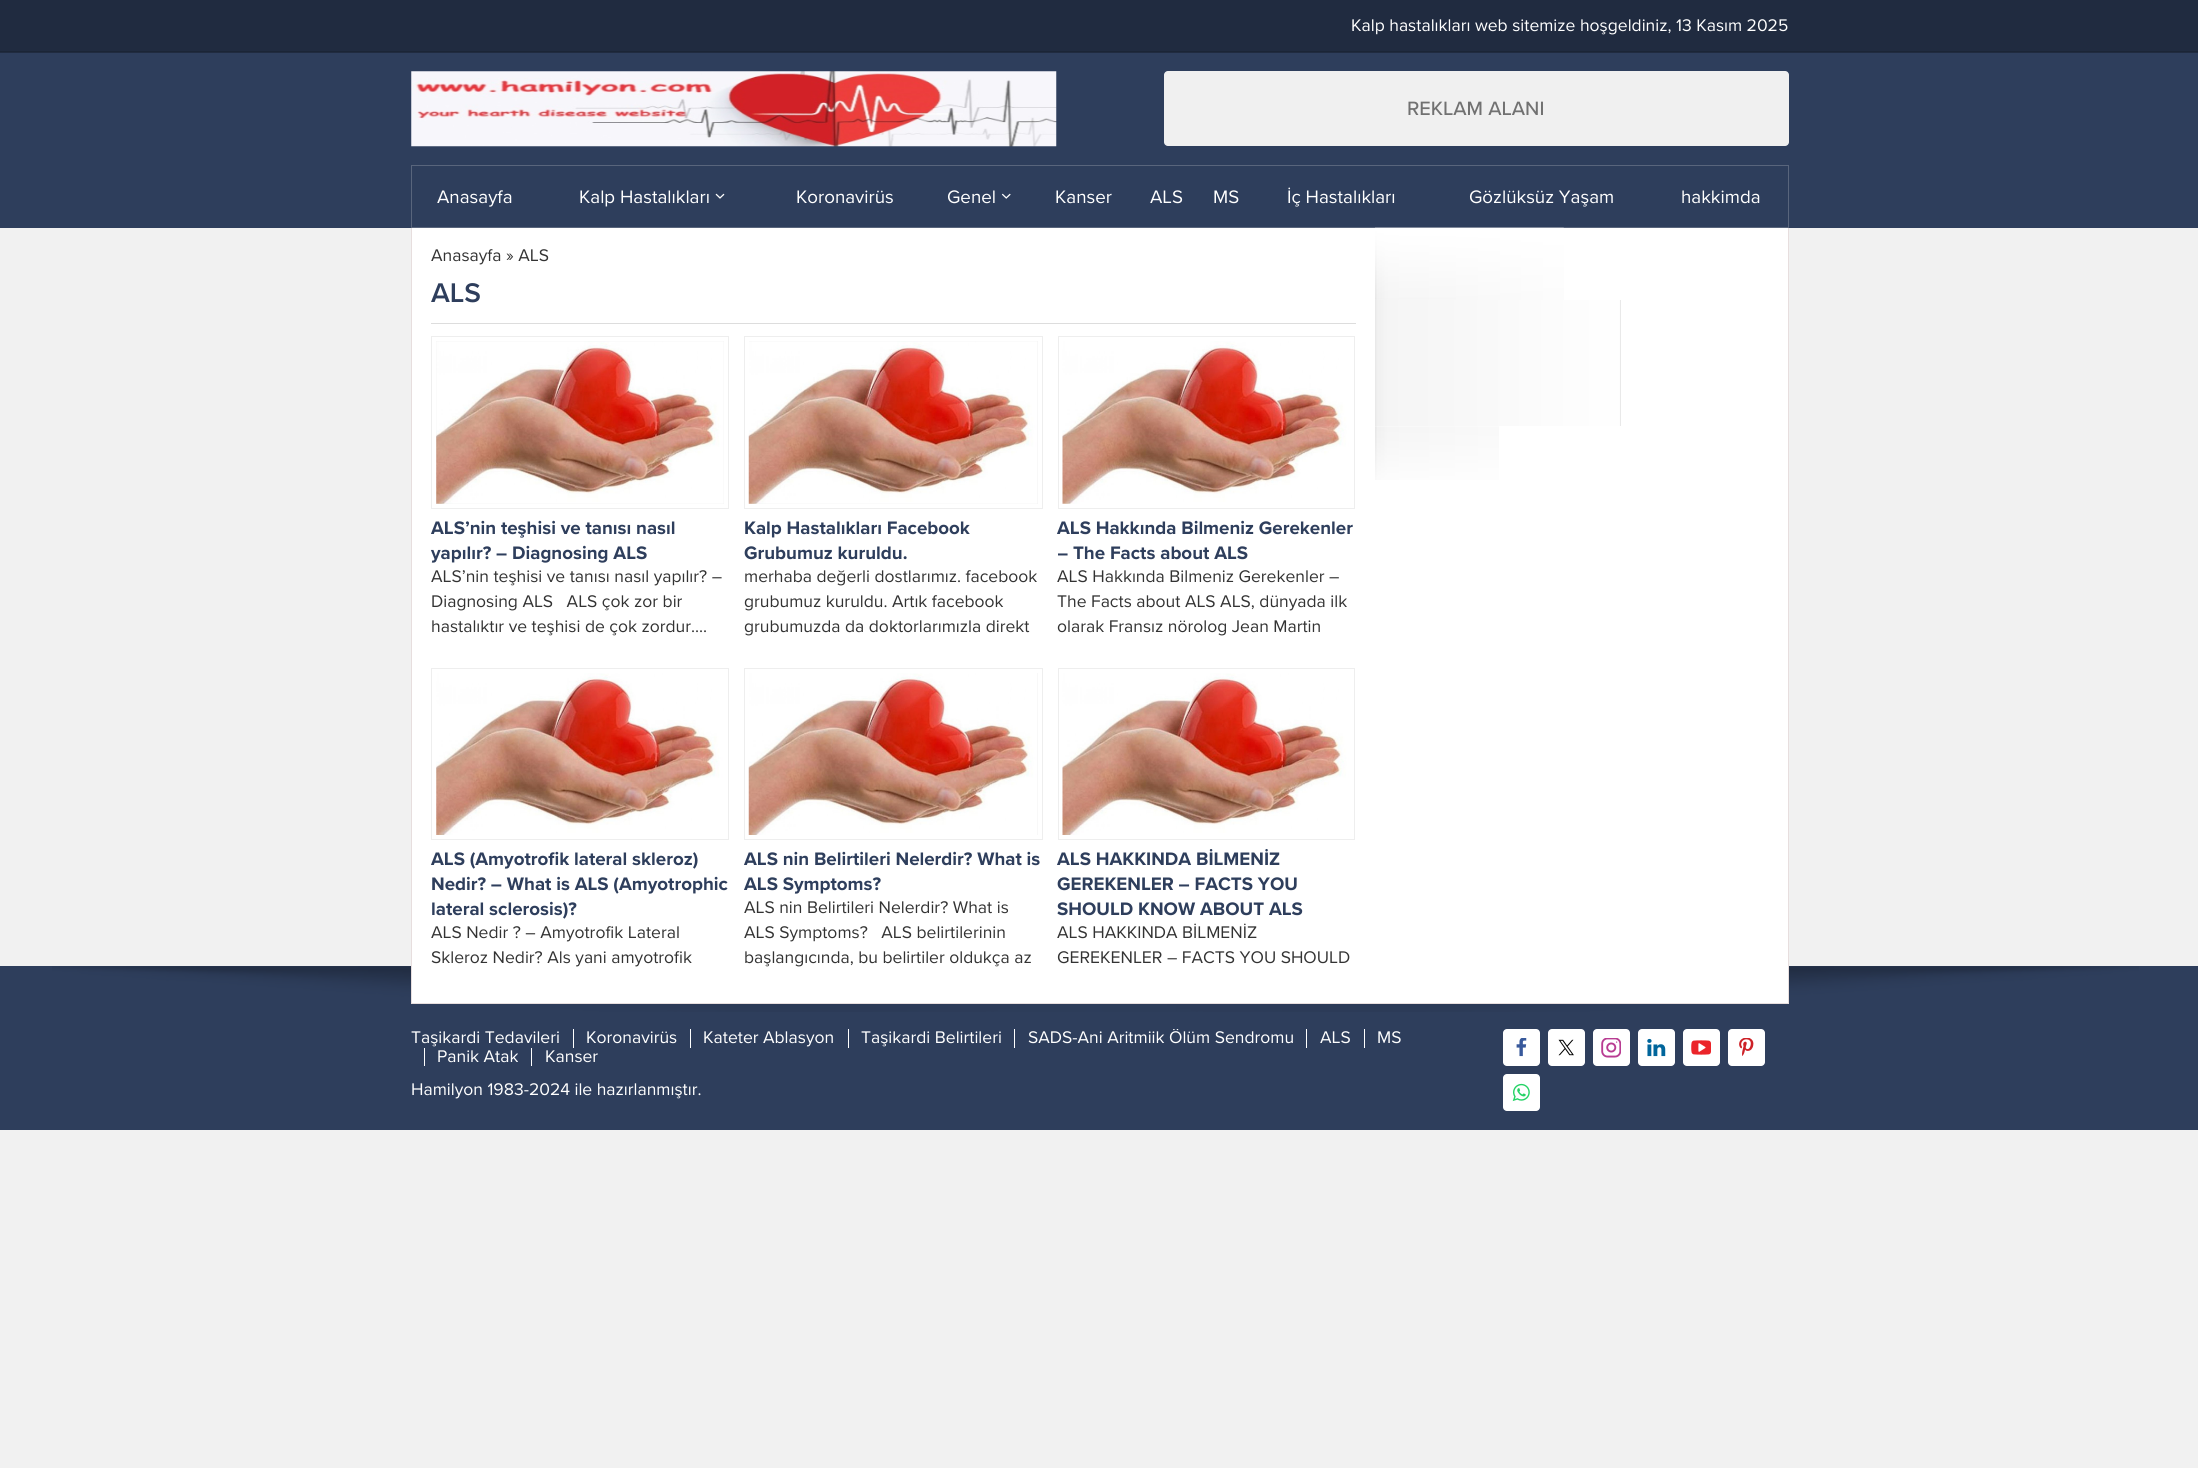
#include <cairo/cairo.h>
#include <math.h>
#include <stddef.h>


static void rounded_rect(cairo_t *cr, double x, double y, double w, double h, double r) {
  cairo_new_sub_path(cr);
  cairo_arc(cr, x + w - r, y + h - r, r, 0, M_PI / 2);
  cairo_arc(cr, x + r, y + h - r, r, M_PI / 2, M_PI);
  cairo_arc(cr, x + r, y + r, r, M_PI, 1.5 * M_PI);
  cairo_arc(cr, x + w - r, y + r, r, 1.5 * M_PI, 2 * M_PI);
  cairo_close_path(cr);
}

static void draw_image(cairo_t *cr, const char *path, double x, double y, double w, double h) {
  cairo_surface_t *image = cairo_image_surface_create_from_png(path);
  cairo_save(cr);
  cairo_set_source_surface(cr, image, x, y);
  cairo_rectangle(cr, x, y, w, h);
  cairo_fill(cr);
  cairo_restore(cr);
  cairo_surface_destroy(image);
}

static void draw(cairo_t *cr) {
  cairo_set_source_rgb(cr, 241 / 255.0, 241 / 255.0, 241 / 255.0);
  cairo_paint(cr);
  cairo_set_source_rgb(cr, 46 / 255.0, 62 / 255.0, 92 / 255.0);
  cairo_rectangle(cr, 0, 53, 2198, 175);
  cairo_fill(cr);
  cairo_set_source_rgb(cr, 32 / 255.0, 43 / 255.0, 64 / 255.0);
  cairo_rectangle(cr, 0, 0, 2198, 53);
  cairo_fill(cr);
  cairo_set_source_rgb(cr, 27 / 255.0, 37 / 255.0, 54 / 255.0);
  cairo_rectangle(cr, 0, 51, 2198, 1);
  cairo_fill(cr);
  draw_image(cr, "images/1.png", 411, 71, 646, 76);
  cairo_set_source_rgb(cr, 240 / 255.0, 240 / 255.0, 240 / 255.0);
  rounded_rect(cr, 1164, 71, 625, 75, 4);
  cairo_fill(cr);
  cairo_set_source_rgb(cr, 46 / 255.0, 62 / 255.0, 92 / 255.0);
  cairo_rectangle(cr, 0, 966, 2198, 164);
  cairo_fill(cr);
  draw_image(cr, "images/13.png", 52, 966, 2087, 46);
  cairo_set_source_rgb(cr, 1, 1, 1);
  cairo_rectangle(cr, 412, 228, 1376, 775);
  cairo_fill(cr);
  draw_image(cr, "images/11.png", 1375, 227, 189, 73);
  cairo_rectangle(cr, 411.5, 165.5, 1377, 62);
  cairo_set_source_rgba(cr, 222 / 255.0, 222 / 255.0, 222 / 255.0, 0.25);
  cairo_set_line_width(cr, 1);
  cairo_stroke(cr);
  draw_image(cr, "images/2.png", 715, 193, 10, 6);
  draw_image(cr, "images/3.png", 1001, 193, 10, 6);
  cairo_set_source_rgb(cr, 231 / 255.0, 222 / 255.0, 222 / 255.0);
  cairo_rectangle(cr, 1788, 228, 1, 776);
  cairo_fill(cr);
  cairo_rectangle(cr, 411, 1003, 1378, 1);
  cairo_fill(cr);
  cairo_rectangle(cr, 411, 228, 1, 776);
  cairo_fill(cr);
  cairo_set_source_rgb(cr, 221 / 255.0, 221 / 255.0, 221 / 255.0);
  cairo_rectangle(cr, 431, 323, 925, 1);
  cairo_fill(cr);
  cairo_rectangle(cr, 431.5, 336.5, 297, 172);
  cairo_set_source_rgb(cr, 238 / 255.0, 238 / 255.0, 238 / 255.0);
  cairo_stroke(cr);
  cairo_set_source_rgb(cr, 240 / 255.0, 240 / 255.0, 240 / 255.0);
  cairo_rectangle(cr, 436, 341, 288, 163);
  cairo_fill(cr);
  draw_image(cr, "images/4.png", 436, 341, 288, 163);
  cairo_rectangle(cr, 744.5, 336.5, 298, 172);
  cairo_set_source_rgb(cr, 238 / 255.0, 238 / 255.0, 238 / 255.0);
  cairo_stroke(cr);
  cairo_set_source_rgb(cr, 240 / 255.0, 240 / 255.0, 240 / 255.0);
  cairo_rectangle(cr, 749, 341, 289, 163);
  cairo_fill(cr);
  draw_image(cr, "images/5.png", 748, 341, 290, 163);
  cairo_rectangle(cr, 1058.5, 336.5, 296, 172);
  cairo_set_source_rgb(cr, 238 / 255.0, 238 / 255.0, 238 / 255.0);
  cairo_stroke(cr);
  draw_image(cr, "images/6.png", 1062, 341, 288, 163);
  cairo_rectangle(cr, 431.5, 668.5, 297, 171);
  cairo_stroke(cr);
  draw_image(cr, "images/7.png", 436, 673, 288, 162);
  cairo_rectangle(cr, 744.5, 668.5, 298, 171);
  cairo_stroke(cr);
  cairo_set_source_rgb(cr, 240 / 255.0, 240 / 255.0, 240 / 255.0);
  cairo_rectangle(cr, 1037, 673, 1, 162);
  cairo_fill(cr);
  draw_image(cr, "images/8.png", 748, 673, 290, 162);
  cairo_rectangle(cr, 1058.5, 668.5, 296, 171);
  cairo_set_source_rgb(cr, 238 / 255.0, 238 / 255.0, 238 / 255.0);
  cairo_stroke(cr);
  draw_image(cr, "images/9.png", 1062, 673, 288, 162);
  draw_image(cr, "images/10.png", 1375, 300, 246, 126);
  draw_image(cr, "images/12.png", 1375, 426, 124, 54);
  cairo_set_source_rgb(cr, 1, 1, 1);
  cairo_rectangle(cr, 573, 1029, 1, 19);
  cairo_fill(cr);
  cairo_rectangle(cr, 690, 1029, 1, 19);
  cairo_fill(cr);
  cairo_rectangle(cr, 848, 1029, 1, 19);
  cairo_fill(cr);
  cairo_rectangle(cr, 1014, 1029, 1, 19);
  cairo_fill(cr);
  cairo_rectangle(cr, 1306, 1029, 1, 19);
  cairo_fill(cr);
  cairo_rectangle(cr, 1364, 1029, 1, 19);
  cairo_fill(cr);
  cairo_rectangle(cr, 424, 1048, 1, 18);
  cairo_fill(cr);
  cairo_rectangle(cr, 531, 1048, 1, 18);
  cairo_fill(cr);
  rounded_rect(cr, 1503, 1029, 37, 37, 4);
  cairo_fill(cr);
  draw_image(cr, "images/14.png", 1516, 1038, 11, 19);
  rounded_rect(cr, 1548, 1029, 37, 37, 4);
  cairo_fill(cr);
  draw_image(cr, "images/15.png", 1558, 1039, 16, 17);
  rounded_rect(cr, 1593, 1029, 37, 37, 4);
  cairo_fill(cr);
  draw_image(cr, "images/16.png", 1601, 1038, 20, 20);
  rounded_rect(cr, 1638, 1029, 37, 37, 4);
  cairo_fill(cr);
  draw_image(cr, "images/17.png", 1647, 1038, 19, 19);
  rounded_rect(cr, 1683, 1029, 37, 37, 4);
  cairo_fill(cr);
  draw_image(cr, "images/18.png", 1691, 1040, 20, 15);
  rounded_rect(cr, 1728, 1029, 37, 37, 4);
  cairo_fill(cr);
  draw_image(cr, "images/19.png", 1739, 1038, 15, 18);
  rounded_rect(cr, 1503, 1074, 37, 37, 4);
  cairo_fill(cr);
  draw_image(cr, "images/20.png", 1512, 1083, 18, 19);
  cairo_select_font_face(cr, "Proxima Nova", CAIRO_FONT_SLANT_NORMAL, CAIRO_FONT_WEIGHT_NORMAL);
  cairo_set_font_size(cr, 17.5);
  cairo_move_to(cr, 1351, 31);
  cairo_show_text(cr, "Kalp hastalıkları web sitemize hoşgeldiniz, 13 Kasım 2025");
  cairo_select_font_face(cr, "Proxima Nova Medium", CAIRO_FONT_SLANT_NORMAL, CAIRO_FONT_WEIGHT_NORMAL);
  cairo_set_font_size(cr, 20);
  cairo_set_source_rgb(cr, 113 / 255.0, 113 / 255.0, 113 / 255.0);
  cairo_move_to(cr, 1407, 115);
  cairo_show_text(cr, "REKLAM ALANI");
  cairo_select_font_face(cr, "Proxima Nova", CAIRO_FONT_SLANT_NORMAL, CAIRO_FONT_WEIGHT_NORMAL);
  cairo_set_font_size(cr, 18.75);
  cairo_set_source_rgb(cr, 1, 1, 1);
  cairo_move_to(cr, 437, 203);
  cairo_show_text(cr, "Anasayfa");
  cairo_move_to(cr, 579, 203);
  cairo_show_text(cr, "Kalp Hastalıkları");
  cairo_move_to(cr, 796, 203);
  cairo_show_text(cr, "Koronavirüs");
  cairo_move_to(cr, 947, 203);
  cairo_show_text(cr, "Genel");
  cairo_move_to(cr, 1055, 203);
  cairo_show_text(cr, "Kanser");
  cairo_move_to(cr, 1150, 203);
  cairo_show_text(cr, "ALS");
  cairo_move_to(cr, 1213, 203);
  cairo_show_text(cr, "MS");
  cairo_move_to(cr, 1287, 203);
  cairo_show_text(cr, "İç Hastalıkları");
  cairo_move_to(cr, 1469, 203);
  cairo_show_text(cr, "Gözlüksüz Yaşam");
  cairo_move_to(cr, 1681, 203);
  cairo_show_text(cr, "hakkimda");
  cairo_set_font_size(cr, 17.5);
  cairo_set_source_rgb(cr, 51 / 255.0, 51 / 255.0, 51 / 255.0);
  cairo_move_to(cr, 431, 261);
  cairo_show_text(cr, "Anasayfa » ALS");
  cairo_select_font_face(cr, "Proxima Nova SemiBold", CAIRO_FONT_SLANT_NORMAL, CAIRO_FONT_WEIGHT_NORMAL);
  cairo_set_font_size(cr, 28);
  cairo_set_source_rgb(cr, 46 / 255.0, 62 / 255.0, 92 / 255.0);
  cairo_move_to(cr, 431, 302);
  cairo_show_text(cr, "ALS");
  cairo_select_font_face(cr, "Proxima Nova", CAIRO_FONT_SLANT_NORMAL, CAIRO_FONT_WEIGHT_BOLD);
  cairo_set_font_size(cr, 18.75);
  cairo_move_to(cr, 431, 534);
  cairo_show_text(cr, "ALS’nin teşhisi ve tanısı nasıl");
  cairo_move_to(cr, 431, 559);
  cairo_show_text(cr, "yapılır? – Diagnosing ALS");
  cairo_select_font_face(cr, "Proxima Nova", CAIRO_FONT_SLANT_NORMAL, CAIRO_FONT_WEIGHT_NORMAL);
  cairo_set_font_size(cr, 17.5);
  cairo_set_source_rgb(cr, 51 / 255.0, 51 / 255.0, 51 / 255.0);
  cairo_move_to(cr, 431, 582);
  cairo_show_text(cr, "ALS’nin teşhisi ve tanısı nasıl yapılır? –");
  cairo_move_to(cr, 431, 607);
  cairo_show_text(cr, "Diagnosing ALS   ALS çok zor bir");
  cairo_move_to(cr, 431, 632);
  cairo_show_text(cr, "hastalıktır ve teşhisi de çok zordur....");
  cairo_select_font_face(cr, "Proxima Nova", CAIRO_FONT_SLANT_NORMAL, CAIRO_FONT_WEIGHT_BOLD);
  cairo_set_font_size(cr, 18.75);
  cairo_set_source_rgb(cr, 46 / 255.0, 62 / 255.0, 92 / 255.0);
  cairo_move_to(cr, 744, 534);
  cairo_show_text(cr, "Kalp Hastalıkları Facebook");
  cairo_move_to(cr, 744, 559);
  cairo_show_text(cr, "Grubumuz kuruldu.");
  cairo_select_font_face(cr, "Proxima Nova", CAIRO_FONT_SLANT_NORMAL, CAIRO_FONT_WEIGHT_NORMAL);
  cairo_set_font_size(cr, 17.5);
  cairo_set_source_rgb(cr, 51 / 255.0, 51 / 255.0, 51 / 255.0);
  cairo_move_to(cr, 744, 582);
  cairo_show_text(cr, "merhaba değerli dostlarımız. facebook");
  cairo_move_to(cr, 744, 607);
  cairo_show_text(cr, "grubumuz kuruldu. Artık facebook");
  cairo_move_to(cr, 744, 632);
  cairo_show_text(cr, "grubumuzda da doktorlarımızla direkt");
  cairo_select_font_face(cr, "Proxima Nova", CAIRO_FONT_SLANT_NORMAL, CAIRO_FONT_WEIGHT_BOLD);
  cairo_set_font_size(cr, 18.75);
  cairo_set_source_rgb(cr, 46 / 255.0, 62 / 255.0, 92 / 255.0);
  cairo_move_to(cr, 1057, 534);
  cairo_show_text(cr, "ALS Hakkında Bilmeniz Gerekenler");
  cairo_save(cr);
  cairo_rectangle(cr, 1058, 515, 297, 125);
  cairo_clip(cr);
  cairo_move_to(cr, 1057, 559);
  cairo_show_text(cr, "– The Facts about ALS");
  cairo_restore(cr);
  cairo_select_font_face(cr, "Proxima Nova", CAIRO_FONT_SLANT_NORMAL, CAIRO_FONT_WEIGHT_NORMAL);
  cairo_set_font_size(cr, 17.5);
  cairo_set_source_rgb(cr, 51 / 255.0, 51 / 255.0, 51 / 255.0);
  cairo_move_to(cr, 1057, 582);
  cairo_show_text(cr, "ALS Hakkında Bilmeniz Gerekenler –");
  cairo_move_to(cr, 1057, 607);
  cairo_show_text(cr, "The Facts about ALS ALS, dünyada ilk");
  cairo_move_to(cr, 1057, 632);
  cairo_show_text(cr, "olarak Fransız nörolog Jean Martin");
  cairo_select_font_face(cr, "Proxima Nova", CAIRO_FONT_SLANT_NORMAL, CAIRO_FONT_WEIGHT_BOLD);
  cairo_set_font_size(cr, 18.75);
  cairo_set_source_rgb(cr, 46 / 255.0, 62 / 255.0, 92 / 255.0);
  cairo_move_to(cr, 431, 865);
  cairo_show_text(cr, "ALS (Amyotrofik lateral skleroz)");
  cairo_move_to(cr, 431, 890);
  cairo_show_text(cr, "Nedir? – What is ALS (Amyotrophic");
  cairo_move_to(cr, 431, 915);
  cairo_show_text(cr, "lateral sclerosis)?");
  cairo_select_font_face(cr, "Proxima Nova", CAIRO_FONT_SLANT_NORMAL, CAIRO_FONT_WEIGHT_NORMAL);
  cairo_set_font_size(cr, 17.5);
  cairo_set_source_rgb(cr, 51 / 255.0, 51 / 255.0, 51 / 255.0);
  cairo_move_to(cr, 431, 938);
  cairo_show_text(cr, "ALS Nedir ? – Amyotrofik Lateral");
  cairo_move_to(cr, 431, 963);
  cairo_show_text(cr, "Skleroz Nedir? Als yani amyotrofik");
  cairo_select_font_face(cr, "Proxima Nova", CAIRO_FONT_SLANT_NORMAL, CAIRO_FONT_WEIGHT_BOLD);
  cairo_set_font_size(cr, 18.75);
  cairo_set_source_rgb(cr, 46 / 255.0, 62 / 255.0, 92 / 255.0);
  cairo_move_to(cr, 744, 865);
  cairo_show_text(cr, "ALS nin Belirtileri Nelerdir? What is");
  cairo_move_to(cr, 744, 890);
  cairo_show_text(cr, "ALS Symptoms?");
  cairo_select_font_face(cr, "Proxima Nova", CAIRO_FONT_SLANT_NORMAL, CAIRO_FONT_WEIGHT_NORMAL);
  cairo_set_font_size(cr, 17.5);
  cairo_set_source_rgb(cr, 51 / 255.0, 51 / 255.0, 51 / 255.0);
  cairo_move_to(cr, 744, 913);
  cairo_show_text(cr, "ALS nin Belirtileri Nelerdir? What is");
  cairo_move_to(cr, 744, 938);
  cairo_show_text(cr, "ALS Symptoms?   ALS belirtilerinin");
  cairo_move_to(cr, 744, 963);
  cairo_show_text(cr, "başlangıcında, bu belirtiler oldukça az");
  cairo_select_font_face(cr, "Proxima Nova", CAIRO_FONT_SLANT_NORMAL, CAIRO_FONT_WEIGHT_BOLD);
  cairo_set_font_size(cr, 18.75);
  cairo_set_source_rgb(cr, 46 / 255.0, 62 / 255.0, 92 / 255.0);
  cairo_move_to(cr, 1057, 865);
  cairo_show_text(cr, "ALS HAKKINDA BİLMENİZ");
  cairo_move_to(cr, 1057, 890);
  cairo_show_text(cr, "GEREKENLER – FACTS YOU");
  cairo_move_to(cr, 1057, 915);
  cairo_show_text(cr, "SHOULD KNOW ABOUT ALS");
  cairo_select_font_face(cr, "Proxima Nova", CAIRO_FONT_SLANT_NORMAL, CAIRO_FONT_WEIGHT_NORMAL);
  cairo_set_font_size(cr, 17.5);
  cairo_set_source_rgb(cr, 51 / 255.0, 51 / 255.0, 51 / 255.0);
  cairo_move_to(cr, 1057, 938);
  cairo_show_text(cr, "ALS HAKKINDA BİLMENİZ");
  cairo_move_to(cr, 1057, 963);
  cairo_show_text(cr, "GEREKENLER – FACTS YOU SHOULD");
  cairo_set_source_rgb(cr, 1, 1, 1);
  cairo_move_to(cr, 411, 1043);
  cairo_show_text(cr, "Taşikardi Tedavileri");
  cairo_move_to(cr, 586, 1043);
  cairo_show_text(cr, "Koronavirüs");
  cairo_move_to(cr, 703, 1043);
  cairo_show_text(cr, "Kateter Ablasyon");
  cairo_move_to(cr, 861, 1043);
  cairo_show_text(cr, "Taşikardi Belirtileri");
  cairo_save(cr);
  cairo_rectangle(cr, 411, 1029, 1092, 37);
  cairo_clip(cr);
  cairo_move_to(cr, 1028, 1043);
  cairo_show_text(cr, "SADS-Ani Aritmiik Ölüm Sendromu");
  cairo_restore(cr);
  cairo_move_to(cr, 1320, 1043);
  cairo_show_text(cr, "ALS");
  cairo_move_to(cr, 1377, 1043);
  cairo_show_text(cr, "MS");
  cairo_move_to(cr, 437, 1062);
  cairo_show_text(cr, "Panik Atak");
  cairo_move_to(cr, 545, 1062);
  cairo_show_text(cr, "Kanser");
  cairo_move_to(cr, 411, 1095);
  cairo_show_text(cr, "Hamilyon 1983-2024 ile hazırlanmıştır.");
}

int main(void) {
  cairo_surface_t *surface = cairo_image_surface_create(CAIRO_FORMAT_RGB24, 2198, 1468);
  cairo_t *cr = cairo_create(surface);
  cairo_font_options_t *options = cairo_font_options_create();
  cairo_font_options_set_hint_metrics(options, CAIRO_HINT_METRICS_OFF);
  cairo_font_options_set_hint_style(options, CAIRO_HINT_STYLE_NONE);
  cairo_set_font_options(cr, options);
  cairo_set_miter_limit(cr, 4);
  draw(cr);
  cairo_surface_write_to_png(surface, "out.png");
  cairo_font_options_destroy(options);
  cairo_destroy(cr);
  cairo_surface_destroy(surface);
  return 0;
}
